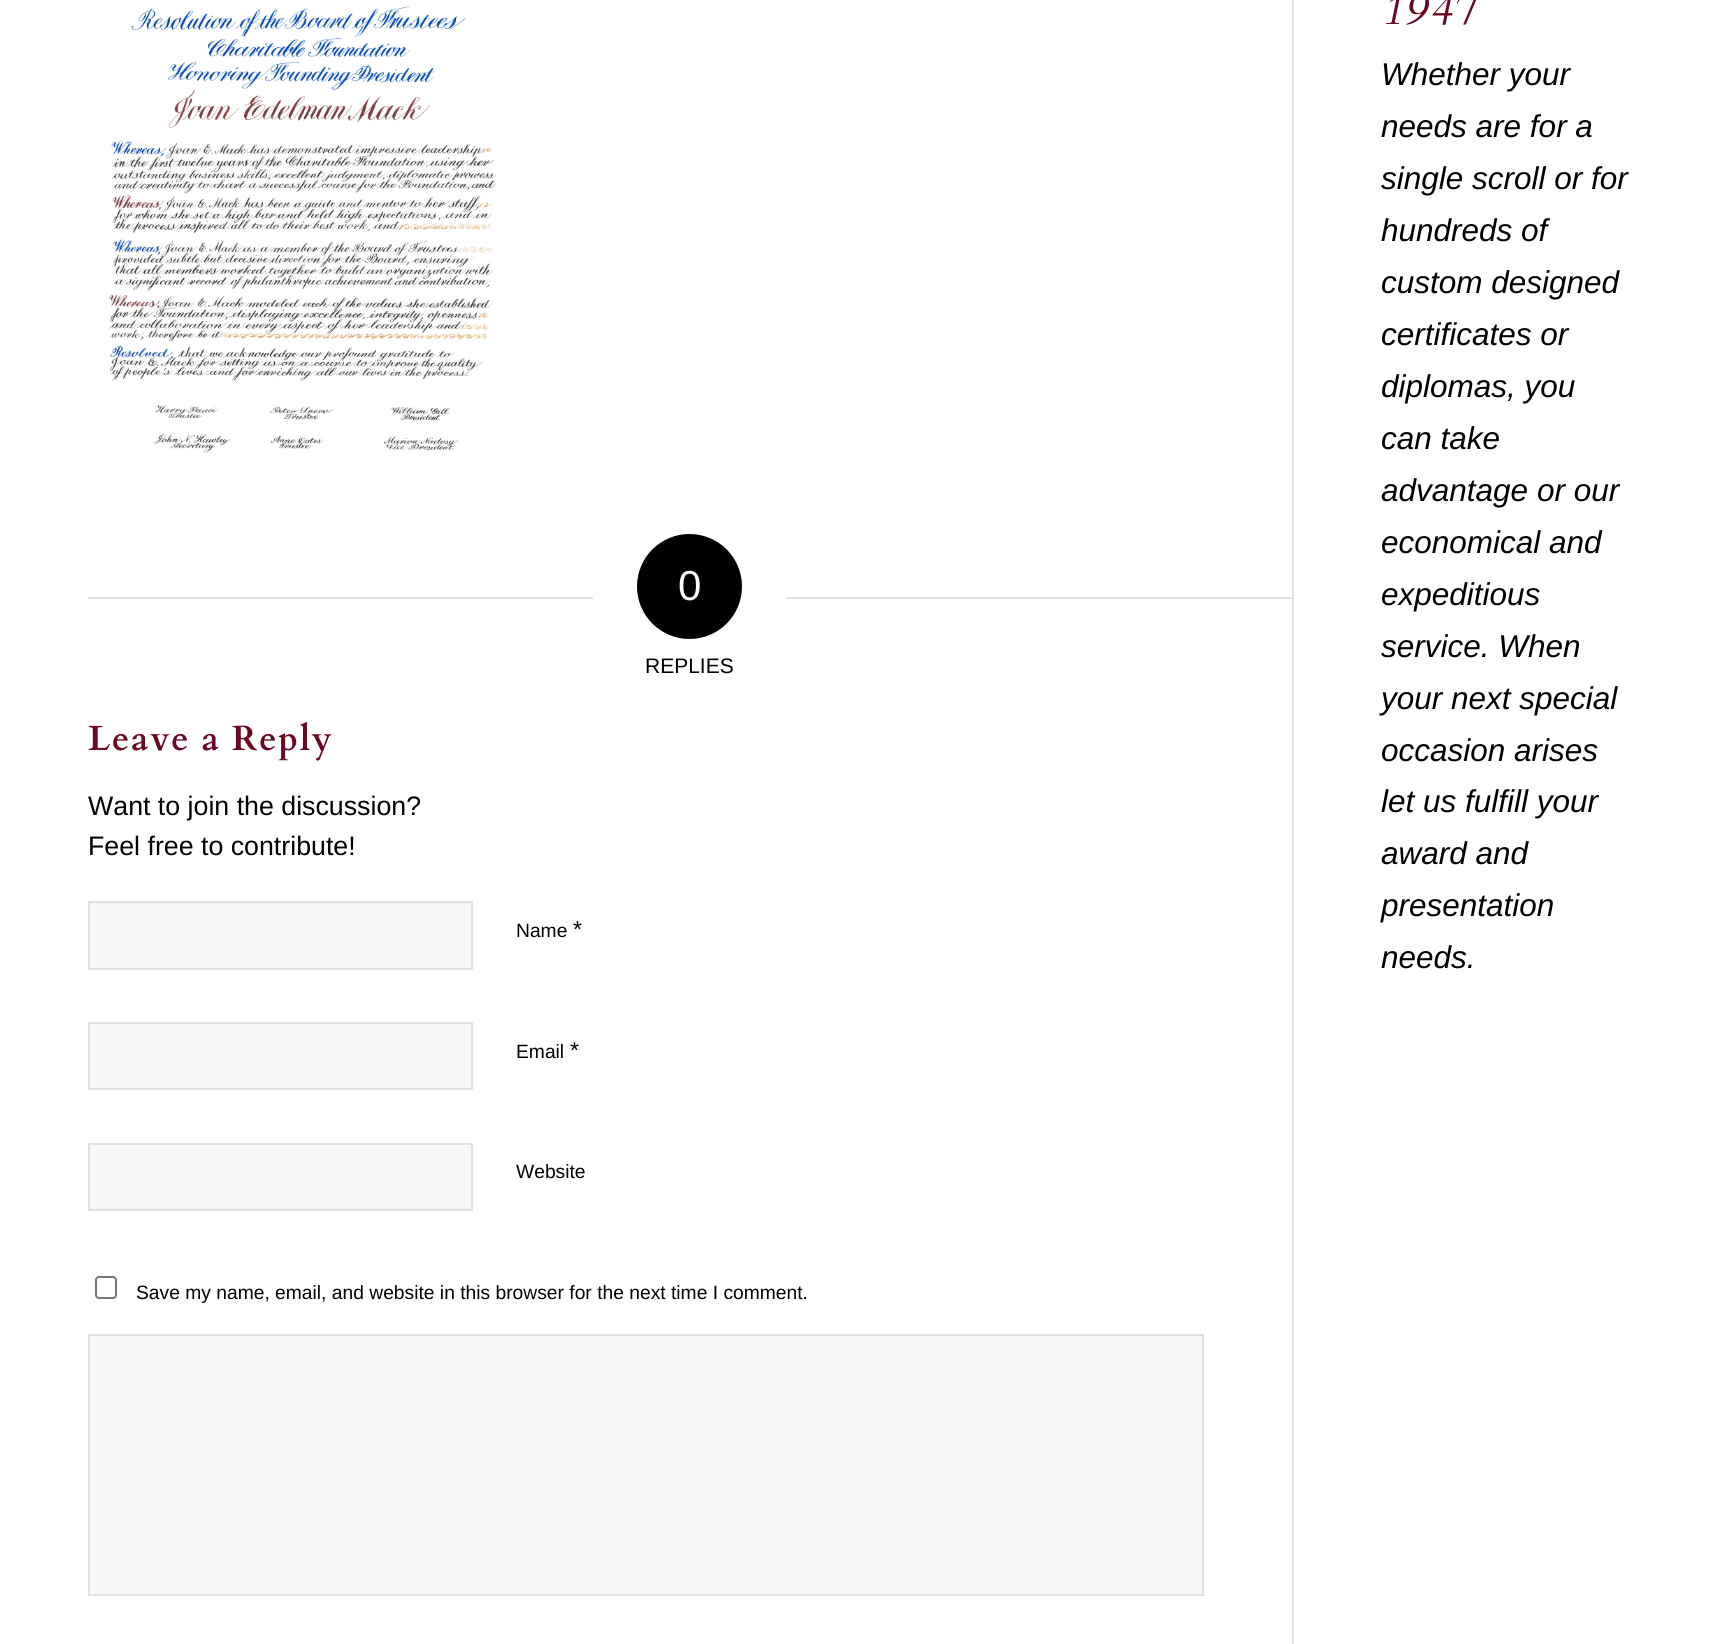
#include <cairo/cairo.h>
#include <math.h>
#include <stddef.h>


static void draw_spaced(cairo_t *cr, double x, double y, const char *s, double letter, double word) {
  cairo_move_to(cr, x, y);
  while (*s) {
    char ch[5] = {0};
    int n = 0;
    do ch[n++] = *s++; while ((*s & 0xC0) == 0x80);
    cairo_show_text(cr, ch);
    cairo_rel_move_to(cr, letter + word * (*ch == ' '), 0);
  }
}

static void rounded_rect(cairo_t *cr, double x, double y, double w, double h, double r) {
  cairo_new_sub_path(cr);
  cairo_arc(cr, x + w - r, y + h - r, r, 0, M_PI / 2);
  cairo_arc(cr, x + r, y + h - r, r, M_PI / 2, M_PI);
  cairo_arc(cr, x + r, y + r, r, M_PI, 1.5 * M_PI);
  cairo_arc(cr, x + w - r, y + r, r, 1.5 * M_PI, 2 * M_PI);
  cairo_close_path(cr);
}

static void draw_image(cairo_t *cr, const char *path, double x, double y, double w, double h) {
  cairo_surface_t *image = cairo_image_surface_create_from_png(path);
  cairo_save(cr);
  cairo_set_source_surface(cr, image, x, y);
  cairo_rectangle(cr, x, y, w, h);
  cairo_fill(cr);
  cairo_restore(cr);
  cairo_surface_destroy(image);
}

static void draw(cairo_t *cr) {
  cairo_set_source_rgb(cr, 1, 1, 1);
  cairo_paint(cr);
  cairo_set_source_rgb(cr, 225 / 255.0, 225 / 255.0, 225 / 255.0);
  cairo_rectangle(cr, 1292, 0, 2, 1644);
  cairo_fill(cr);
  draw_image(cr, "images/1.png", 109, 5, 388, 448);
  cairo_rectangle(cr, 88, 597, 505, 2);
  cairo_fill(cr);
  cairo_set_source_rgb(cr, 1 / 255.0, 1 / 255.0, 1 / 255.0);
  cairo_arc(cr, 689.5, 586.5, 52.5, 0, 2 * M_PI);
  cairo_fill(cr);
  cairo_set_source_rgb(cr, 225 / 255.0, 225 / 255.0, 225 / 255.0);
  cairo_rectangle(cr, 786, 597, 506, 2);
  cairo_fill(cr);
  cairo_set_source_rgb(cr, 248 / 255.0, 248 / 255.0, 248 / 255.0);
  cairo_rectangle(cr, 89, 902, 383, 67);
  cairo_fill_preserve(cr);
  cairo_set_source_rgb(cr, 225 / 255.0, 225 / 255.0, 225 / 255.0);
  cairo_stroke(cr);
  cairo_set_source_rgb(cr, 248 / 255.0, 248 / 255.0, 248 / 255.0);
  cairo_rectangle(cr, 89, 1023, 383, 66);
  cairo_fill_preserve(cr);
  cairo_set_source_rgb(cr, 225 / 255.0, 225 / 255.0, 225 / 255.0);
  cairo_stroke(cr);
  cairo_set_source_rgb(cr, 248 / 255.0, 248 / 255.0, 248 / 255.0);
  cairo_rectangle(cr, 89, 1144, 383, 66);
  cairo_fill_preserve(cr);
  cairo_set_source_rgb(cr, 225 / 255.0, 225 / 255.0, 225 / 255.0);
  cairo_stroke(cr);
  rounded_rect(cr, 96, 1277, 20, 21, 3);
  cairo_set_source_rgb(cr, 118 / 255.0, 118 / 255.0, 118 / 255.0);
  cairo_stroke(cr);
  cairo_set_source_rgb(cr, 248 / 255.0, 248 / 255.0, 248 / 255.0);
  cairo_rectangle(cr, 89, 1335, 1114, 260);
  cairo_fill_preserve(cr);
  cairo_set_source_rgb(cr, 225 / 255.0, 225 / 255.0, 225 / 255.0);
  cairo_stroke(cr);
  cairo_select_font_face(cr, "Liberation Sans", CAIRO_FONT_SLANT_NORMAL, CAIRO_FONT_WEIGHT_NORMAL);
  cairo_set_font_size(cr, 42);
  cairo_set_source_rgb(cr, 1, 1, 1);
  cairo_move_to(cr, 678, 600);
  cairo_show_text(cr, "0");
  cairo_set_font_size(cr, 21);
  cairo_set_source_rgb(cr, 1 / 255.0, 1 / 255.0, 1 / 255.0);
  cairo_move_to(cr, 645, 673);
  cairo_show_text(cr, "REPLIES");
  cairo_select_font_face(cr, "Cardo", CAIRO_FONT_SLANT_NORMAL, CAIRO_FONT_WEIGHT_BOLD);
  cairo_set_font_size(cr, 35);
  cairo_set_source_rgb(cr, 105 / 255.0, 8 / 255.0, 32 / 255.0);
  draw_spaced(cr, 88, 750, "Leave a Reply", 1.75, 0);
  cairo_select_font_face(cr, "Liberation Sans", CAIRO_FONT_SLANT_NORMAL, CAIRO_FONT_WEIGHT_NORMAL);
  cairo_set_font_size(cr, 26.75);
  cairo_set_source_rgb(cr, 1 / 255.0, 1 / 255.0, 1 / 255.0);
  cairo_move_to(cr, 88, 815);
  cairo_show_text(cr, "Want to join the discussion?");
  cairo_move_to(cr, 88, 855);
  cairo_show_text(cr, "Feel free to contribute!");
  cairo_set_font_size(cr, 19.25);
  cairo_move_to(cr, 516, 937);
  cairo_show_text(cr, "Name");
  cairo_set_font_size(cr, 23);
  cairo_move_to(cr, 573, 937);
  cairo_show_text(cr, "*");
  cairo_set_font_size(cr, 19.25);
  cairo_move_to(cr, 516, 1058);
  cairo_show_text(cr, "Email");
  cairo_set_font_size(cr, 23);
  cairo_move_to(cr, 570, 1058);
  cairo_show_text(cr, "*");
  cairo_set_font_size(cr, 19.25);
  cairo_move_to(cr, 516, 1178);
  cairo_show_text(cr, "Website");
  cairo_move_to(cr, 136, 1299);
  cairo_show_text(cr, "Save my name, email, and website in this browser for the next time I comment.");
  cairo_select_font_face(cr, "Cardo", CAIRO_FONT_SLANT_ITALIC, CAIRO_FONT_WEIGHT_NORMAL);
  cairo_set_font_size(cr, 44);
  cairo_set_source_rgb(cr, 105 / 255.0, 8 / 255.0, 32 / 255.0);
  draw_spaced(cr, 1381, 24, "1947", 1.75, 0);
  cairo_select_font_face(cr, "Liberation Sans", CAIRO_FONT_SLANT_ITALIC, CAIRO_FONT_WEIGHT_NORMAL);
  cairo_set_font_size(cr, 31.5);
  cairo_set_source_rgb(cr, 1 / 255.0, 1 / 255.0, 1 / 255.0);
  cairo_move_to(cr, 1381, 85);
  cairo_show_text(cr, "Whether your");
  cairo_move_to(cr, 1381, 137);
  cairo_show_text(cr, "needs are for a");
  cairo_move_to(cr, 1381, 189);
  cairo_show_text(cr, "single scroll or for");
  cairo_move_to(cr, 1381, 241);
  cairo_show_text(cr, "hundreds of");
  cairo_move_to(cr, 1381, 293);
  cairo_show_text(cr, "custom designed");
  cairo_move_to(cr, 1381, 345);
  cairo_show_text(cr, "certificates or");
  cairo_move_to(cr, 1381, 397);
  cairo_show_text(cr, "diplomas, you");
  cairo_move_to(cr, 1381, 449);
  cairo_show_text(cr, "can take");
  cairo_move_to(cr, 1381, 501);
  cairo_show_text(cr, "advantage or our");
  cairo_move_to(cr, 1381, 553);
  cairo_show_text(cr, "economical and");
  cairo_move_to(cr, 1381, 605);
  cairo_show_text(cr, "expeditious");
  cairo_move_to(cr, 1381, 657);
  cairo_show_text(cr, "service. When");
  cairo_move_to(cr, 1381, 709);
  cairo_show_text(cr, "your next special");
  cairo_move_to(cr, 1381, 761);
  cairo_show_text(cr, "occasion arises");
  cairo_move_to(cr, 1381, 812);
  cairo_show_text(cr, "let us fulfill your");
  cairo_move_to(cr, 1381, 864);
  cairo_show_text(cr, "award and");
  cairo_move_to(cr, 1381, 916);
  cairo_show_text(cr, "presentation");
  cairo_move_to(cr, 1381, 968);
  cairo_show_text(cr, "needs.");
}

int main(void) {
  cairo_surface_t *surface = cairo_image_surface_create(CAIRO_FORMAT_RGB24, 1717, 1644);
  cairo_t *cr = cairo_create(surface);
  cairo_font_options_t *options = cairo_font_options_create();
  cairo_font_options_set_hint_metrics(options, CAIRO_HINT_METRICS_OFF);
  cairo_font_options_set_hint_style(options, CAIRO_HINT_STYLE_NONE);
  cairo_set_font_options(cr, options);
  cairo_set_miter_limit(cr, 4);
  draw(cr);
  cairo_surface_write_to_png(surface, "out.png");
  cairo_font_options_destroy(options);
  cairo_destroy(cr);
  cairo_surface_destroy(surface);
  return 0;
}
